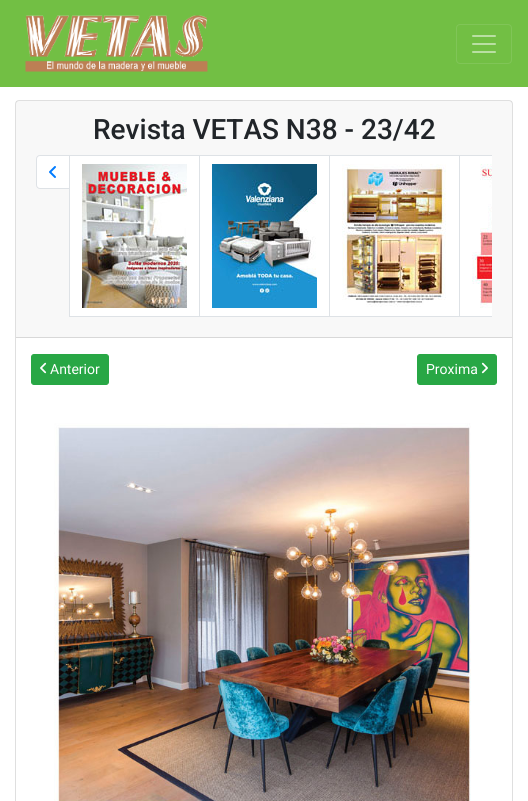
#include <cairo/cairo.h>
#include <math.h>
#include <stddef.h>


static void rounded_rect(cairo_t *cr, double x, double y, double w, double h, double r) {
  cairo_new_sub_path(cr);
  cairo_arc(cr, x + w - r, y + h - r, r, 0, M_PI / 2);
  cairo_arc(cr, x + r, y + h - r, r, M_PI / 2, M_PI);
  cairo_arc(cr, x + r, y + r, r, M_PI, 1.5 * M_PI);
  cairo_arc(cr, x + w - r, y + r, r, 1.5 * M_PI, 2 * M_PI);
  cairo_close_path(cr);
}

static void draw_image(cairo_t *cr, const char *path, double x, double y, double w, double h) {
  cairo_surface_t *image = cairo_image_surface_create_from_png(path);
  cairo_save(cr);
  cairo_set_source_surface(cr, image, x, y);
  cairo_rectangle(cr, x, y, w, h);
  cairo_fill(cr);
  cairo_restore(cr);
  cairo_surface_destroy(image);
}

static void draw(cairo_t *cr) {
  cairo_set_source_rgb(cr, 1, 1, 1);
  cairo_paint(cr);
  cairo_set_source_rgb(cr, 114 / 255.0, 191 / 255.0, 68 / 255.0);
  cairo_rectangle(cr, 0, 0, 528, 87);
  cairo_fill(cr);
  draw_image(cr, "images/1.png", 25, 15, 183, 57);
  rounded_rect(cr, 456.5, 24.5, 55, 39, 3.5);
  cairo_set_source_rgb(cr, 128 / 255.0, 197 / 255.0, 87 / 255.0);
  cairo_set_line_width(cr, 1);
  cairo_stroke(cr);
  draw_image(cr, "images/2.png", 472, 35, 24, 18);
  rounded_rect(cr, 15.5, 100.5, 497, 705, 3.5);
  cairo_set_source_rgb(cr, 223 / 255.0, 223 / 255.0, 223 / 255.0);
  cairo_stroke(cr);
  cairo_set_source_rgba(cr, 0, 0, 0, 0.03);
  cairo_rectangle(cr, 16, 101, 496, 236);
  cairo_fill(cr);
  cairo_set_source_rgb(cr, 216 / 255.0, 216 / 255.0, 216 / 255.0);
  cairo_rectangle(cr, 16, 337, 496, 1);
  cairo_fill(cr);
  cairo_set_source_rgb(cr, 1, 1, 1);
  cairo_new_path(cr);
  cairo_move_to(cr, 40, 155.5);
  cairo_line_to(cr, 69.5, 155.5);
  cairo_line_to(cr, 69.5, 188.5);
  cairo_line_to(cr, 40, 188.5);
  cairo_curve_to(cr, 38, 188.5, 36.5, 187, 36.5, 185);
  cairo_line_to(cr, 36.5, 159);
  cairo_curve_to(cr, 36.5, 157, 38, 155.5, 40, 155.5);
  cairo_close_path(cr);
  cairo_fill_preserve(cr);
  cairo_set_source_rgb(cr, 222 / 255.0, 226 / 255.0, 230 / 255.0);
  cairo_stroke(cr);
  draw_image(cr, "images/3.png", 49, 166, 7, 12);
  cairo_set_source_rgb(cr, 1, 1, 1);
  cairo_rectangle(cr, 69.5, 155.5, 130, 161);
  cairo_fill_preserve(cr);
  cairo_set_source_rgb(cr, 222 / 255.0, 226 / 255.0, 230 / 255.0);
  cairo_stroke(cr);
  draw_image(cr, "images/4.png", 82, 164, 105, 144);
  cairo_set_source_rgb(cr, 1, 1, 1);
  cairo_rectangle(cr, 199.5, 155.5, 130, 161);
  cairo_fill_preserve(cr);
  cairo_set_source_rgb(cr, 222 / 255.0, 226 / 255.0, 230 / 255.0);
  cairo_stroke(cr);
  draw_image(cr, "images/5.png", 212, 164, 105, 144);
  cairo_set_source_rgb(cr, 1, 1, 1);
  cairo_rectangle(cr, 329.5, 155.5, 130, 161);
  cairo_fill_preserve(cr);
  cairo_set_source_rgb(cr, 222 / 255.0, 226 / 255.0, 230 / 255.0);
  cairo_stroke(cr);
  draw_image(cr, "images/6.png", 342, 164, 104, 143);
  cairo_set_source_rgb(cr, 1, 1, 1);
  cairo_rectangle(cr, 460, 156, 32, 160);
  cairo_fill(cr);
  cairo_save(cr);
  cairo_rectangle(cr, 36, 155, 456, 162);
  cairo_clip(cr);
  cairo_rectangle(cr, 459.5, 155.5, 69, 161);
  cairo_set_source_rgb(cr, 222 / 255.0, 226 / 255.0, 230 / 255.0);
  cairo_stroke(cr);
  cairo_restore(cr);
  draw_image(cr, "images/7.png", 472, 164, 20, 144);
  cairo_set_source_rgb(cr, 40 / 255.0, 167 / 255.0, 69 / 255.0);
  rounded_rect(cr, 31.5, 354.5, 77, 30, 2.5);
  cairo_fill_preserve(cr);
  cairo_stroke(cr);
  draw_image(cr, "images/8.png", 40, 362, 7, 12);
  rounded_rect(cr, 417.5, 354.5, 79, 30, 2.5);
  cairo_fill_preserve(cr);
  cairo_stroke(cr);
  draw_image(cr, "images/9.png", 481, 362, 7, 12);
  draw_image(cr, "images/10.png", 54, 423, 417, 378);
  cairo_select_font_face(cr, "Roboto Medium", CAIRO_FONT_SLANT_NORMAL, CAIRO_FONT_WEIGHT_NORMAL);
  cairo_set_font_size(cr, 28);
  cairo_set_source_rgb(cr, 33 / 255.0, 37 / 255.0, 41 / 255.0);
  cairo_move_to(cr, 93, 139);
  cairo_show_text(cr, "Revista VETAS N38 - 23/42");
  cairo_select_font_face(cr, "Roboto", CAIRO_FONT_SLANT_NORMAL, CAIRO_FONT_WEIGHT_NORMAL);
  cairo_set_font_size(cr, 14);
  cairo_set_source_rgb(cr, 1, 1, 1);
  cairo_move_to(cr, 50, 374);
  cairo_show_text(cr, "Anterior");
  cairo_move_to(cr, 426, 374);
  cairo_show_text(cr, "Proxima");
}

int main(void) {
  cairo_surface_t *surface = cairo_image_surface_create(CAIRO_FORMAT_RGB24, 528, 801);
  cairo_t *cr = cairo_create(surface);
  cairo_font_options_t *options = cairo_font_options_create();
  cairo_font_options_set_hint_metrics(options, CAIRO_HINT_METRICS_OFF);
  cairo_font_options_set_hint_style(options, CAIRO_HINT_STYLE_NONE);
  cairo_set_font_options(cr, options);
  cairo_set_miter_limit(cr, 4);
  draw(cr);
  cairo_surface_write_to_png(surface, "out.png");
  cairo_font_options_destroy(options);
  cairo_destroy(cr);
  cairo_surface_destroy(surface);
  return 0;
}
